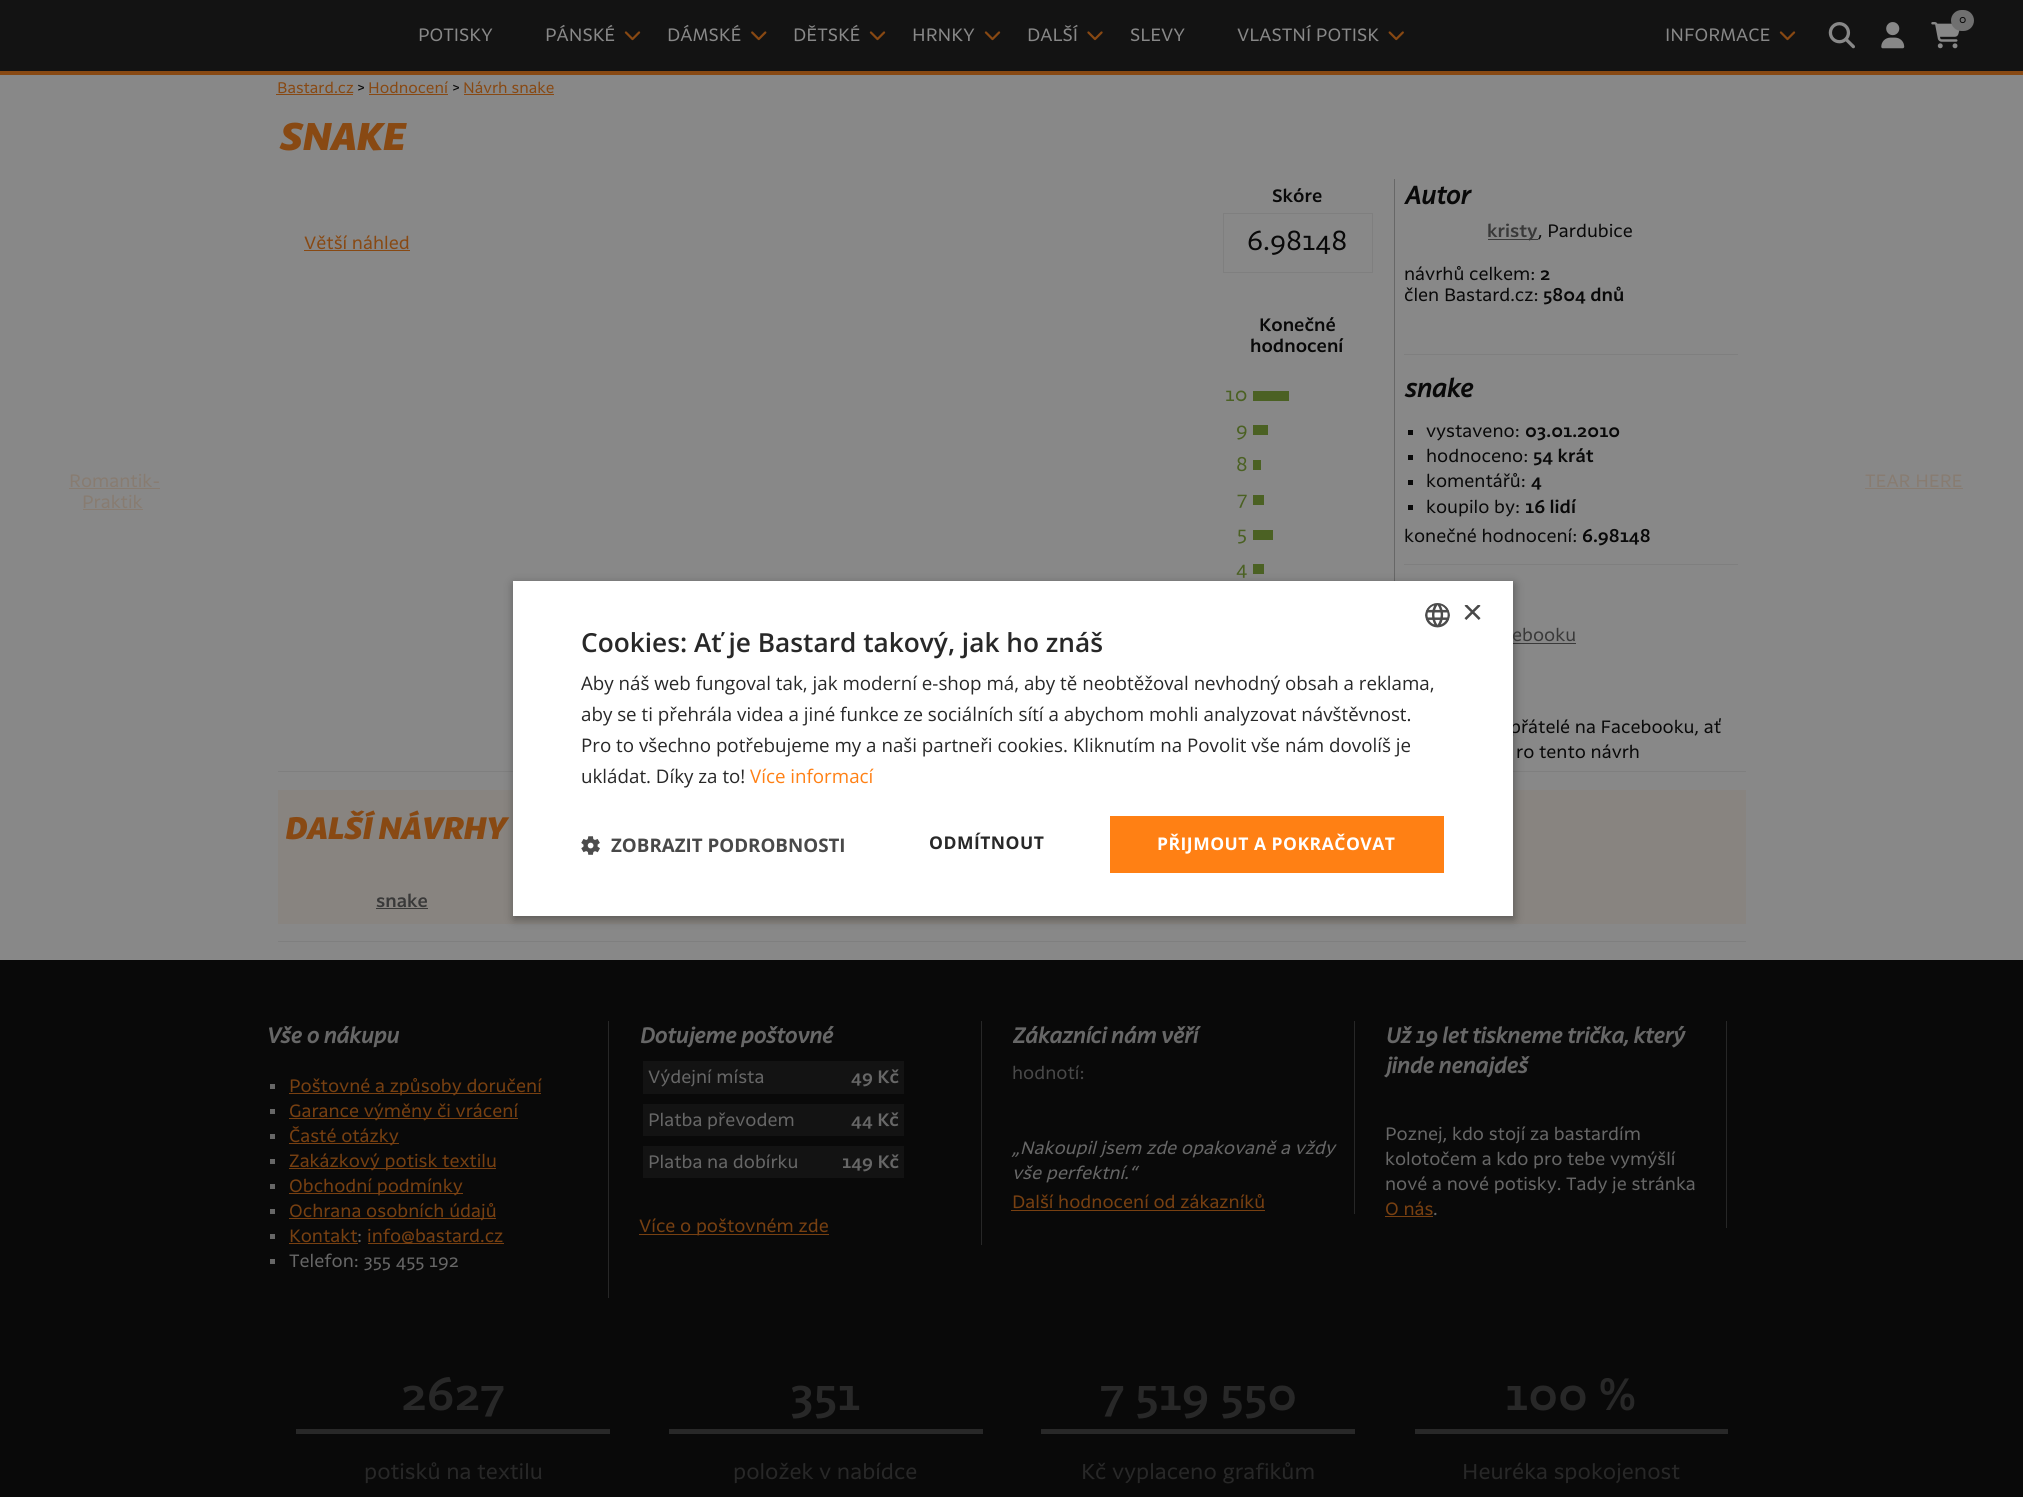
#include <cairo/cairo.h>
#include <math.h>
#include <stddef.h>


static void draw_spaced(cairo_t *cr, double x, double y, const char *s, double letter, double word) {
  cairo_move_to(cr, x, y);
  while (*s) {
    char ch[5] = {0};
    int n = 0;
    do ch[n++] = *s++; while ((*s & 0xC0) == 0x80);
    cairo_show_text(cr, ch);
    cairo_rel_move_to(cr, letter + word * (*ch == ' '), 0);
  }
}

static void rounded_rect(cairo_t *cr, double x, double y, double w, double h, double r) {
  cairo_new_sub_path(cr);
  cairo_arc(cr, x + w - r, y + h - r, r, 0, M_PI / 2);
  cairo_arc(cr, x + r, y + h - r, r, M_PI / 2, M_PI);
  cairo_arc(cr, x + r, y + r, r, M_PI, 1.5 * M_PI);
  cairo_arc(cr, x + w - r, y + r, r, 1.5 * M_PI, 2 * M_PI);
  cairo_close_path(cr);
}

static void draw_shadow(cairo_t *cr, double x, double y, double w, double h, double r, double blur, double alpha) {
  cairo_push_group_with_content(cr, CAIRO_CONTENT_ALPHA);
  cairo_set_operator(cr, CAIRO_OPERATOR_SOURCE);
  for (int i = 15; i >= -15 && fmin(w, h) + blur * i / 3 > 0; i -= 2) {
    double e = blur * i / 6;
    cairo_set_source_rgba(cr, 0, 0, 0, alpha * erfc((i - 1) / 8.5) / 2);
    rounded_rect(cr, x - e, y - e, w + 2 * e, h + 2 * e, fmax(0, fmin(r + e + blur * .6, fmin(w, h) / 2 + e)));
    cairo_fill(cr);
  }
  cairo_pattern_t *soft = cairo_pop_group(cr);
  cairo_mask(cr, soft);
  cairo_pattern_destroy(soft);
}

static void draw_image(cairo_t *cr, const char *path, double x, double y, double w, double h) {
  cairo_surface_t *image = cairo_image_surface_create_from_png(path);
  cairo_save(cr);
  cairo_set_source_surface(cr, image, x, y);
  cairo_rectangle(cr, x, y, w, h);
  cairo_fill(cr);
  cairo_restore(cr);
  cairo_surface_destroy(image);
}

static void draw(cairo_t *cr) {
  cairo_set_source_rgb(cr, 136 / 255.0, 136 / 255.0, 136 / 255.0);
  cairo_paint(cr);
  cairo_set_source_rgb(cr, 19 / 255.0, 19 / 255.0, 19 / 255.0);
  cairo_rectangle(cr, 0, 0, 2023, 71);
  cairo_fill(cr);
  cairo_set_source_rgb(cr, 136 / 255.0, 73 / 255.0, 19 / 255.0);
  cairo_rectangle(cr, 0, 71, 2023, 4);
  cairo_fill(cr);
  draw_image(cr, "images/1.png", 624, 31, 17, 10);
  draw_image(cr, "images/2.png", 751, 31, 16, 10);
  draw_image(cr, "images/1.png", 869, 31, 17, 10);
  draw_image(cr, "images/1.png", 984, 31, 17, 10);
  draw_image(cr, "images/3.png", 1087, 31, 16, 10);
  draw_image(cr, "images/4.png", 1388, 31, 16, 10);
  draw_image(cr, "images/5.png", 1931, 22, 29, 27);
  cairo_set_source_rgb(cr, 112 / 255.0, 112 / 255.0, 112 / 255.0);
  rounded_rect(cr, 1951, 10, 23, 21, 10.5);
  cairo_fill(cr);
  draw_image(cr, "images/6.png", 1828, 22, 27, 27);
  draw_image(cr, "images/7.png", 1881, 22, 24, 27);
  draw_image(cr, "images/1.png", 1779, 31, 17, 10);
  cairo_set_source_rgb(cr, 136 / 255.0, 73 / 255.0, 19 / 255.0);
  cairo_rectangle(cr, 276, 94, 77, 1);
  cairo_fill(cr);
  cairo_rectangle(cr, 369, 94, 79, 1);
  cairo_fill(cr);
  cairo_rectangle(cr, 464, 94, 90, 1);
  cairo_fill(cr);
  cairo_set_source_rgb(cr, 136 / 255.0, 124 / 255.0, 113 / 255.0);
  cairo_rectangle(cr, 69, 488, 91, 1);
  cairo_fill(cr);
  cairo_rectangle(cr, 83, 509, 60, 1);
  cairo_fill(cr);
  cairo_set_source_rgb(cr, 136 / 255.0, 73 / 255.0, 19 / 255.0);
  cairo_rectangle(cr, 304, 250, 106, 1);
  cairo_fill(cr);
  cairo_rectangle(cr, 1223.5, 213.5, 149, 59);
  cairo_set_source_rgb(cr, 127 / 255.0, 127 / 255.0, 127 / 255.0);
  cairo_set_line_width(cr, 1);
  cairo_stroke(cr);
  cairo_set_source_rgb(cr, 75 / 255.0, 97 / 255.0, 35 / 255.0);
  cairo_rectangle(cr, 1253, 391, 36, 10);
  cairo_fill(cr);
  cairo_rectangle(cr, 1253, 425, 15, 10);
  cairo_fill(cr);
  cairo_rectangle(cr, 1253, 460, 8, 10);
  cairo_fill(cr);
  cairo_rectangle(cr, 1253, 495, 11, 10);
  cairo_fill(cr);
  cairo_rectangle(cr, 1253, 530, 20, 10);
  cairo_fill(cr);
  cairo_rectangle(cr, 1253, 564, 11, 10);
  cairo_fill(cr);
  cairo_set_source_rgb(cr, 103 / 255.0, 103 / 255.0, 103 / 255.0);
  cairo_rectangle(cr, 1394, 179, 1, 402);
  cairo_fill(cr);
  cairo_set_source_rgb(cr, 57 / 255.0, 57 / 255.0, 57 / 255.0);
  cairo_rectangle(cr, 1488, 239, 50, 1);
  cairo_fill(cr);
  cairo_set_source_rgb(cr, 127 / 255.0, 127 / 255.0, 127 / 255.0);
  cairo_rectangle(cr, 1404, 354, 334, 1);
  cairo_fill(cr);
  cairo_set_source_rgb(cr, 9 / 255.0, 9 / 255.0, 9 / 255.0);
  cairo_rectangle(cr, 1408, 430, 5, 5);
  cairo_fill(cr);
  cairo_rectangle(cr, 1408, 455, 5, 5);
  cairo_fill(cr);
  cairo_rectangle(cr, 1408, 480, 5, 5);
  cairo_fill(cr);
  cairo_rectangle(cr, 1408, 505, 5, 5);
  cairo_fill(cr);
  cairo_set_source_rgb(cr, 127 / 255.0, 127 / 255.0, 127 / 255.0);
  cairo_rectangle(cr, 1404, 564, 334, 1);
  cairo_fill(cr);
  cairo_set_source_rgb(cr, 57 / 255.0, 57 / 255.0, 57 / 255.0);
  cairo_rectangle(cr, 1513, 643, 63, 1);
  cairo_fill(cr);
  cairo_set_source_rgb(cr, 136 / 255.0, 124 / 255.0, 113 / 255.0);
  cairo_rectangle(cr, 1865, 488, 98, 1);
  cairo_fill(cr);
  cairo_set_source_rgb(cr, 127 / 255.0, 127 / 255.0, 127 / 255.0);
  cairo_rectangle(cr, 278, 771, 1468, 1);
  cairo_fill(cr);
  cairo_set_source_rgb(cr, 136 / 255.0, 132 / 255.0, 128 / 255.0);
  cairo_rectangle(cr, 278, 790, 1468, 134);
  cairo_fill(cr);
  cairo_set_source_rgb(cr, 57 / 255.0, 57 / 255.0, 57 / 255.0);
  cairo_rectangle(cr, 376, 908, 52, 1);
  cairo_fill(cr);
  cairo_set_source_rgb(cr, 127 / 255.0, 127 / 255.0, 127 / 255.0);
  cairo_rectangle(cr, 278, 941, 1468, 1);
  cairo_fill(cr);
  cairo_set_source_rgb(cr, 0, 0, 0);
  draw_shadow(cr, 514, 584, 1000, 335, 0, 5, 0.35);
  cairo_set_source_rgb(cr, 9 / 255.0, 9 / 255.0, 9 / 255.0);
  cairo_rectangle(cr, 0, 960, 2023, 537);
  cairo_fill(cr);
  cairo_set_source_rgb(cr, 39 / 255.0, 39 / 255.0, 39 / 255.0);
  cairo_rectangle(cr, 608, 1021, 1, 277);
  cairo_fill(cr);
  cairo_set_source_rgb(cr, 103 / 255.0, 103 / 255.0, 103 / 255.0);
  cairo_rectangle(cr, 270, 1084, 5, 5);
  cairo_fill(cr);
  cairo_set_source_rgb(cr, 120 / 255.0, 64 / 255.0, 17 / 255.0);
  cairo_rectangle(cr, 289, 1093, 252, 1);
  cairo_fill(cr);
  cairo_set_source_rgb(cr, 103 / 255.0, 103 / 255.0, 103 / 255.0);
  cairo_rectangle(cr, 270, 1109, 5, 5);
  cairo_fill(cr);
  cairo_set_source_rgb(cr, 120 / 255.0, 64 / 255.0, 17 / 255.0);
  cairo_rectangle(cr, 289, 1118, 229, 1);
  cairo_fill(cr);
  cairo_set_source_rgb(cr, 103 / 255.0, 103 / 255.0, 103 / 255.0);
  cairo_rectangle(cr, 270, 1134, 5, 5);
  cairo_fill(cr);
  cairo_set_source_rgb(cr, 120 / 255.0, 64 / 255.0, 17 / 255.0);
  cairo_rectangle(cr, 289, 1143, 110, 1);
  cairo_fill(cr);
  cairo_set_source_rgb(cr, 103 / 255.0, 103 / 255.0, 103 / 255.0);
  cairo_rectangle(cr, 270, 1159, 5, 5);
  cairo_fill(cr);
  cairo_set_source_rgb(cr, 120 / 255.0, 64 / 255.0, 17 / 255.0);
  cairo_rectangle(cr, 289, 1168, 207, 1);
  cairo_fill(cr);
  cairo_set_source_rgb(cr, 103 / 255.0, 103 / 255.0, 103 / 255.0);
  cairo_rectangle(cr, 270, 1184, 5, 5);
  cairo_fill(cr);
  cairo_set_source_rgb(cr, 120 / 255.0, 64 / 255.0, 17 / 255.0);
  cairo_rectangle(cr, 289, 1193, 174, 1);
  cairo_fill(cr);
  cairo_set_source_rgb(cr, 103 / 255.0, 103 / 255.0, 103 / 255.0);
  cairo_rectangle(cr, 270, 1209, 5, 5);
  cairo_fill(cr);
  cairo_set_source_rgb(cr, 120 / 255.0, 64 / 255.0, 17 / 255.0);
  cairo_rectangle(cr, 289, 1218, 207, 1);
  cairo_fill(cr);
  cairo_set_source_rgb(cr, 103 / 255.0, 103 / 255.0, 103 / 255.0);
  cairo_rectangle(cr, 270, 1234, 5, 5);
  cairo_fill(cr);
  cairo_set_source_rgb(cr, 120 / 255.0, 64 / 255.0, 17 / 255.0);
  cairo_rectangle(cr, 289, 1243, 69, 1);
  cairo_fill(cr);
  cairo_rectangle(cr, 368, 1243, 136, 1);
  cairo_fill(cr);
  cairo_set_source_rgb(cr, 103 / 255.0, 103 / 255.0, 103 / 255.0);
  cairo_rectangle(cr, 270, 1259, 5, 5);
  cairo_fill(cr);
  cairo_set_source_rgb(cr, 39 / 255.0, 39 / 255.0, 39 / 255.0);
  cairo_rectangle(cr, 981, 1021, 1, 224);
  cairo_fill(cr);
  cairo_set_source_rgb(cr, 19 / 255.0, 19 / 255.0, 19 / 255.0);
  cairo_rectangle(cr, 643, 1061, 261, 33);
  cairo_fill(cr);
  cairo_rectangle(cr, 643, 1104, 261, 32);
  cairo_fill(cr);
  cairo_rectangle(cr, 643, 1146, 261, 32);
  cairo_fill(cr);
  cairo_set_source_rgb(cr, 120 / 255.0, 64 / 255.0, 17 / 255.0);
  cairo_rectangle(cr, 639, 1234, 190, 1);
  cairo_fill(cr);
  cairo_set_source_rgb(cr, 39 / 255.0, 39 / 255.0, 39 / 255.0);
  cairo_rectangle(cr, 1354, 1021, 1, 193);
  cairo_fill(cr);
  cairo_set_source_rgb(cr, 120 / 255.0, 64 / 255.0, 17 / 255.0);
  cairo_rectangle(cr, 1011, 1210, 254, 1);
  cairo_fill(cr);
  cairo_set_source_rgb(cr, 39 / 255.0, 39 / 255.0, 39 / 255.0);
  cairo_rectangle(cr, 1726, 1021, 1, 207);
  cairo_fill(cr);
  cairo_set_source_rgb(cr, 120 / 255.0, 64 / 255.0, 17 / 255.0);
  cairo_rectangle(cr, 1385, 1216, 48, 1);
  cairo_fill(cr);
  cairo_set_source_rgb(cr, 40 / 255.0, 40 / 255.0, 40 / 255.0);
  cairo_rectangle(cr, 296, 1429, 314, 5);
  cairo_fill(cr);
  cairo_rectangle(cr, 669, 1429, 314, 5);
  cairo_fill(cr);
  cairo_rectangle(cr, 1041, 1429, 314, 5);
  cairo_fill(cr);
  cairo_rectangle(cr, 1415, 1429, 313, 5);
  cairo_fill(cr);
  cairo_select_font_face(cr, "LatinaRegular", CAIRO_FONT_SLANT_NORMAL, CAIRO_FONT_WEIGHT_NORMAL);
  cairo_set_font_size(cr, 17.5);
  cairo_set_source_rgb(cr, 136 / 255.0, 136 / 255.0, 136 / 255.0);
  cairo_move_to(cr, 418, 41);
  cairo_show_text(cr, "POTISKY");
  cairo_move_to(cr, 545, 41);
  cairo_show_text(cr, "PÁNSKÉ");
  cairo_move_to(cr, 667, 41);
  cairo_show_text(cr, "DÁMSKÉ");
  cairo_move_to(cr, 793, 41);
  cairo_show_text(cr, "DĚTSKÉ");
  cairo_move_to(cr, 912, 41);
  cairo_show_text(cr, "HRNKY");
  cairo_move_to(cr, 1027, 41);
  cairo_show_text(cr, "DALŠÍ");
  cairo_move_to(cr, 1130, 41);
  cairo_show_text(cr, "SLEVY");
  cairo_move_to(cr, 1237, 41);
  cairo_show_text(cr, "VLASTNÍ POTISK");
  cairo_set_font_size(cr, 11);
  cairo_set_source_rgb(cr, 9 / 255.0, 9 / 255.0, 9 / 255.0);
  cairo_move_to(cr, 1959, 23);
  cairo_show_text(cr, "0");
  cairo_set_font_size(cr, 17.5);
  cairo_set_source_rgb(cr, 136 / 255.0, 136 / 255.0, 136 / 255.0);
  cairo_move_to(cr, 1665, 41);
  cairo_show_text(cr, "INFORMACE");
  cairo_set_font_size(cr, 15);
  cairo_set_source_rgb(cr, 136 / 255.0, 73 / 255.0, 19 / 255.0);
  cairo_move_to(cr, 277, 93);
  cairo_show_text(cr, "Bastard.cz");
  cairo_set_source_rgb(cr, 9 / 255.0, 9 / 255.0, 9 / 255.0);
  cairo_move_to(cr, 357, 93);
  cairo_show_text(cr, ">");
  cairo_set_source_rgb(cr, 136 / 255.0, 73 / 255.0, 19 / 255.0);
  cairo_move_to(cr, 368, 93);
  cairo_show_text(cr, "Hodnocení");
  cairo_set_source_rgb(cr, 9 / 255.0, 9 / 255.0, 9 / 255.0);
  cairo_move_to(cr, 452, 93);
  cairo_show_text(cr, ">");
  cairo_set_source_rgb(cr, 136 / 255.0, 73 / 255.0, 19 / 255.0);
  cairo_move_to(cr, 463, 93);
  cairo_show_text(cr, "Návrh snake");
  cairo_select_font_face(cr, "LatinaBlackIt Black", CAIRO_FONT_SLANT_ITALIC, CAIRO_FONT_WEIGHT_NORMAL);
  cairo_set_font_size(cr, 37);
  cairo_move_to(cr, 278, 150);
  cairo_show_text(cr, "SNAKE");
  cairo_select_font_face(cr, "LatinaRegular", CAIRO_FONT_SLANT_NORMAL, CAIRO_FONT_WEIGHT_NORMAL);
  cairo_set_font_size(cr, 17.5);
  cairo_set_source_rgb(cr, 136 / 255.0, 124 / 255.0, 113 / 255.0);
  cairo_move_to(cr, 69, 487);
  cairo_show_text(cr, "Romantik-");
  cairo_move_to(cr, 82, 508);
  cairo_show_text(cr, "Praktik");
  cairo_set_source_rgb(cr, 136 / 255.0, 73 / 255.0, 19 / 255.0);
  cairo_move_to(cr, 304, 249);
  cairo_show_text(cr, "Větší náhled");
  cairo_select_font_face(cr, "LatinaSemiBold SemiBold", CAIRO_FONT_SLANT_NORMAL, CAIRO_FONT_WEIGHT_NORMAL);
  cairo_set_source_rgb(cr, 9 / 255.0, 9 / 255.0, 9 / 255.0);
  cairo_move_to(cr, 1272, 202);
  cairo_show_text(cr, "Skóre");
  cairo_select_font_face(cr, "LatinaRegular", CAIRO_FONT_SLANT_NORMAL, CAIRO_FONT_WEIGHT_NORMAL);
  cairo_set_font_size(cr, 26.25);
  cairo_move_to(cr, 1247, 250);
  cairo_show_text(cr, "6.98148");
  cairo_select_font_face(cr, "LatinaSemiBold SemiBold", CAIRO_FONT_SLANT_NORMAL, CAIRO_FONT_WEIGHT_NORMAL);
  cairo_set_font_size(cr, 17.5);
  cairo_move_to(cr, 1259, 331);
  cairo_show_text(cr, "Konečné");
  cairo_move_to(cr, 1250, 352);
  cairo_show_text(cr, "hodnocení");
  cairo_select_font_face(cr, "LatinaRegular", CAIRO_FONT_SLANT_NORMAL, CAIRO_FONT_WEIGHT_NORMAL);
  cairo_set_font_size(cr, 19);
  cairo_set_source_rgb(cr, 75 / 255.0, 97 / 255.0, 35 / 255.0);
  cairo_move_to(cr, 1225, 401);
  cairo_show_text(cr, "10");
  cairo_move_to(cr, 1236, 436);
  cairo_show_text(cr, "9");
  cairo_move_to(cr, 1236, 471);
  cairo_show_text(cr, "8");
  cairo_move_to(cr, 1237, 505);
  cairo_show_text(cr, "7");
  cairo_move_to(cr, 1237, 540);
  cairo_show_text(cr, "5");
  cairo_move_to(cr, 1236, 575);
  cairo_show_text(cr, "4");
  cairo_select_font_face(cr, "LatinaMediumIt", CAIRO_FONT_SLANT_ITALIC, CAIRO_FONT_WEIGHT_BOLD);
  cairo_set_font_size(cr, 24.5);
  cairo_set_source_rgb(cr, 9 / 255.0, 9 / 255.0, 9 / 255.0);
  cairo_move_to(cr, 1404, 204);
  cairo_show_text(cr, "Autor");
  cairo_select_font_face(cr, "LatinaSemiBold SemiBold", CAIRO_FONT_SLANT_NORMAL, CAIRO_FONT_WEIGHT_NORMAL);
  cairo_set_font_size(cr, 17.5);
  cairo_set_source_rgb(cr, 57 / 255.0, 57 / 255.0, 57 / 255.0);
  cairo_move_to(cr, 1487, 237);
  cairo_show_text(cr, "kristy");
  cairo_select_font_face(cr, "LatinaRegular", CAIRO_FONT_SLANT_NORMAL, CAIRO_FONT_WEIGHT_NORMAL);
  cairo_set_source_rgb(cr, 9 / 255.0, 9 / 255.0, 9 / 255.0);
  cairo_move_to(cr, 1538, 237);
  cairo_show_text(cr, ", Pardubice");
  cairo_move_to(cr, 1404, 280);
  cairo_show_text(cr, "návrhů celkem:");
  cairo_select_font_face(cr, "LatinaSemiBold SemiBold", CAIRO_FONT_SLANT_NORMAL, CAIRO_FONT_WEIGHT_NORMAL);
  cairo_move_to(cr, 1540, 280);
  cairo_show_text(cr, "2");
  cairo_select_font_face(cr, "LatinaRegular", CAIRO_FONT_SLANT_NORMAL, CAIRO_FONT_WEIGHT_NORMAL);
  cairo_move_to(cr, 1404, 301);
  cairo_show_text(cr, "člen Bastard.cz:");
  cairo_select_font_face(cr, "LatinaSemiBold SemiBold", CAIRO_FONT_SLANT_NORMAL, CAIRO_FONT_WEIGHT_NORMAL);
  cairo_move_to(cr, 1543, 301);
  cairo_show_text(cr, "5804 dnů");
  cairo_select_font_face(cr, "LatinaMediumIt", CAIRO_FONT_SLANT_ITALIC, CAIRO_FONT_WEIGHT_BOLD);
  cairo_set_font_size(cr, 24.5);
  cairo_move_to(cr, 1404, 397);
  cairo_show_text(cr, "snake");
  cairo_select_font_face(cr, "LatinaRegular", CAIRO_FONT_SLANT_NORMAL, CAIRO_FONT_WEIGHT_NORMAL);
  cairo_set_font_size(cr, 17.5);
  cairo_move_to(cr, 1426, 437);
  cairo_show_text(cr, "vystaveno:");
  cairo_select_font_face(cr, "LatinaSemiBold SemiBold", CAIRO_FONT_SLANT_NORMAL, CAIRO_FONT_WEIGHT_NORMAL);
  cairo_move_to(cr, 1525, 437);
  cairo_show_text(cr, "03.01.2010");
  cairo_select_font_face(cr, "LatinaRegular", CAIRO_FONT_SLANT_NORMAL, CAIRO_FONT_WEIGHT_NORMAL);
  cairo_move_to(cr, 1426, 462);
  cairo_show_text(cr, "hodnoceno:");
  cairo_select_font_face(cr, "LatinaSemiBold SemiBold", CAIRO_FONT_SLANT_NORMAL, CAIRO_FONT_WEIGHT_NORMAL);
  cairo_move_to(cr, 1533, 462);
  cairo_show_text(cr, "54 krát");
  cairo_select_font_face(cr, "LatinaRegular", CAIRO_FONT_SLANT_NORMAL, CAIRO_FONT_WEIGHT_NORMAL);
  cairo_move_to(cr, 1426, 487);
  cairo_show_text(cr, "komentářů:");
  cairo_select_font_face(cr, "LatinaSemiBold SemiBold", CAIRO_FONT_SLANT_NORMAL, CAIRO_FONT_WEIGHT_NORMAL);
  cairo_move_to(cr, 1531, 487);
  cairo_show_text(cr, "4");
  cairo_select_font_face(cr, "LatinaRegular", CAIRO_FONT_SLANT_NORMAL, CAIRO_FONT_WEIGHT_NORMAL);
  cairo_move_to(cr, 1426, 513);
  cairo_show_text(cr, "koupilo by:");
  cairo_select_font_face(cr, "LatinaSemiBold SemiBold", CAIRO_FONT_SLANT_NORMAL, CAIRO_FONT_WEIGHT_NORMAL);
  cairo_move_to(cr, 1525, 513);
  cairo_show_text(cr, "16 lidí");
  cairo_select_font_face(cr, "LatinaRegular", CAIRO_FONT_SLANT_NORMAL, CAIRO_FONT_WEIGHT_NORMAL);
  cairo_move_to(cr, 1404, 542);
  cairo_show_text(cr, "konečné hodnocení:");
  cairo_select_font_face(cr, "LatinaSemiBold SemiBold", CAIRO_FONT_SLANT_NORMAL, CAIRO_FONT_WEIGHT_NORMAL);
  cairo_move_to(cr, 1582, 542);
  cairo_show_text(cr, "6.98148");
  cairo_select_font_face(cr, "LatinaRegular", CAIRO_FONT_SLANT_NORMAL, CAIRO_FONT_WEIGHT_NORMAL);
  cairo_set_source_rgb(cr, 57 / 255.0, 57 / 255.0, 57 / 255.0);
  cairo_move_to(cr, 1512, 641);
  cairo_show_text(cr, "ebooku");
  cairo_set_source_rgb(cr, 9 / 255.0, 9 / 255.0, 9 / 255.0);
  cairo_move_to(cr, 1510, 733);
  cairo_show_text(cr, "přátelé na Facebooku, ať");
  cairo_move_to(cr, 1516, 758);
  cairo_show_text(cr, "ro tento návrh");
  cairo_set_source_rgb(cr, 136 / 255.0, 124 / 255.0, 113 / 255.0);
  cairo_move_to(cr, 1865, 487);
  cairo_show_text(cr, "TEAR HERE");
  cairo_select_font_face(cr, "LatinaBlackIt Black", CAIRO_FONT_SLANT_ITALIC, CAIRO_FONT_WEIGHT_NORMAL);
  cairo_set_font_size(cr, 29.75);
  cairo_set_source_rgb(cr, 136 / 255.0, 73 / 255.0, 19 / 255.0);
  cairo_move_to(cr, 284, 839);
  cairo_show_text(cr, "DALŠÍ NÁVRHY");
  cairo_select_font_face(cr, "LatinaSemiBold SemiBold", CAIRO_FONT_SLANT_NORMAL, CAIRO_FONT_WEIGHT_NORMAL);
  cairo_set_font_size(cr, 17.5);
  cairo_set_source_rgb(cr, 57 / 255.0, 57 / 255.0, 57 / 255.0);
  cairo_move_to(cr, 376, 907);
  cairo_show_text(cr, "snake");
  cairo_set_source_rgb(cr, 1, 1, 1);
  cairo_rectangle(cr, 513, 581, 1000, 335);
  cairo_fill(cr);
  draw_image(cr, "images/8.png", 1425, 603, 25, 25);
  cairo_save(cr);
  cairo_rectangle(cr, 1463, 605, 18, 19);
  cairo_clip(cr);
  cairo_select_font_face(cr, "Liberation Sans", CAIRO_FONT_SLANT_NORMAL, CAIRO_FONT_WEIGHT_NORMAL);
  cairo_set_font_size(cr, 36);
  cairo_set_source_rgb(cr, 73 / 255.0, 73 / 255.0, 73 / 255.0);
  cairo_move_to(cr, 1462, 624);
  cairo_show_text(cr, "×");
  cairo_restore(cr);
  cairo_select_font_face(cr, "Open Sans SemiBold", CAIRO_FONT_SLANT_NORMAL, CAIRO_FONT_WEIGHT_NORMAL);
  cairo_set_font_size(cr, 26.25);
  cairo_set_source_rgb(cr, 40 / 255.0, 40 / 255.0, 40 / 255.0);
  cairo_move_to(cr, 581, 652);
  cairo_show_text(cr, "Cookies: Ať je Bastard takový, jak ho znáš");
  cairo_select_font_face(cr, "Open Sans", CAIRO_FONT_SLANT_NORMAL, CAIRO_FONT_WEIGHT_NORMAL);
  cairo_set_font_size(cr, 18.75);
  cairo_move_to(cr, 581, 690);
  cairo_show_text(cr, "Aby náš web fungoval tak, jak moderní e-shop má, aby tě neobtěžoval nevhodný obsah a reklama,");
  cairo_move_to(cr, 581, 721);
  cairo_show_text(cr, "aby se ti přehrála videa a jiné funkce ze sociálních sítí a abychom mohli analyzovat návštěvnost.");
  cairo_move_to(cr, 581, 752);
  cairo_show_text(cr, "Pro to všechno potřebujeme my a naši partneři cookies. Kliknutím na Povolit vše nám dovolíš je");
  cairo_move_to(cr, 581, 783);
  cairo_show_text(cr, "ukládat. Díky za to!");
  cairo_set_source_rgb(cr, 1, 128 / 255.0, 20 / 255.0);
  cairo_move_to(cr, 750, 783);
  cairo_show_text(cr, "Více informací");
  draw_image(cr, "images/9.png", 581, 836, 19, 19);
  cairo_select_font_face(cr, "Open Sans", CAIRO_FONT_SLANT_NORMAL, CAIRO_FONT_WEIGHT_BOLD);
  cairo_set_source_rgb(cr, 73 / 255.0, 73 / 255.0, 73 / 255.0);
  cairo_move_to(cr, 611, 852);
  cairo_show_text(cr, "ZOBRAZIT PODROBNOSTI");
  cairo_set_font_size(cr, 17.5);
  cairo_set_source_rgb(cr, 40 / 255.0, 40 / 255.0, 40 / 255.0);
  draw_spaced(cr, 929, 849, "ODMÍTNOUT", 0.5, 0);
  cairo_set_source_rgb(cr, 1, 128 / 255.0, 20 / 255.0);
  cairo_rectangle(cr, 1110, 816, 334, 57);
  cairo_fill(cr);
  cairo_set_source_rgb(cr, 1, 1, 1);
  draw_spaced(cr, 1157, 850, "PŘIJMOUT A POKRAČOVAT", 0.5, 0);
  cairo_select_font_face(cr, "LatinaMediumIt", CAIRO_FONT_SLANT_ITALIC, CAIRO_FONT_WEIGHT_BOLD);
  cairo_set_font_size(cr, 21);
  cairo_set_source_rgb(cr, 103 / 255.0, 103 / 255.0, 103 / 255.0);
  cairo_move_to(cr, 266, 1043);
  cairo_show_text(cr, "Vše o nákupu");
  cairo_select_font_face(cr, "LatinaRegular", CAIRO_FONT_SLANT_NORMAL, CAIRO_FONT_WEIGHT_NORMAL);
  cairo_set_font_size(cr, 17.5);
  cairo_set_source_rgb(cr, 120 / 255.0, 64 / 255.0, 17 / 255.0);
  cairo_move_to(cr, 289, 1092);
  cairo_show_text(cr, "Poštovné a způsoby doručení");
  cairo_move_to(cr, 289, 1117);
  cairo_show_text(cr, "Garance výměny či vrácení");
  cairo_move_to(cr, 289, 1142);
  cairo_show_text(cr, "Časté otázky");
  cairo_move_to(cr, 289, 1167);
  cairo_show_text(cr, "Zakázkový potisk textilu");
  cairo_move_to(cr, 289, 1192);
  cairo_show_text(cr, "Obchodní podmínky");
  cairo_move_to(cr, 289, 1217);
  cairo_show_text(cr, "Ochrana osobních údajů");
  cairo_move_to(cr, 289, 1242);
  cairo_show_text(cr, "Kontakt");
  cairo_set_source_rgb(cr, 103 / 255.0, 103 / 255.0, 103 / 255.0);
  cairo_move_to(cr, 357, 1242);
  cairo_show_text(cr, ":");
  cairo_set_source_rgb(cr, 120 / 255.0, 64 / 255.0, 17 / 255.0);
  cairo_move_to(cr, 367, 1242);
  cairo_show_text(cr, "info@bastard.cz");
  cairo_set_source_rgb(cr, 103 / 255.0, 103 / 255.0, 103 / 255.0);
  cairo_move_to(cr, 289, 1267);
  cairo_show_text(cr, "Telefon: 355 455 192");
  cairo_select_font_face(cr, "LatinaMediumIt", CAIRO_FONT_SLANT_ITALIC, CAIRO_FONT_WEIGHT_BOLD);
  cairo_set_font_size(cr, 21);
  cairo_move_to(cr, 639, 1043);
  cairo_show_text(cr, "Dotujeme poštovné");
  cairo_select_font_face(cr, "LatinaRegular", CAIRO_FONT_SLANT_NORMAL, CAIRO_FONT_WEIGHT_NORMAL);
  cairo_set_font_size(cr, 17.5);
  cairo_move_to(cr, 648, 1083);
  cairo_show_text(cr, "Výdejní místa");
  cairo_select_font_face(cr, "LatinaSemiBold SemiBold", CAIRO_FONT_SLANT_NORMAL, CAIRO_FONT_WEIGHT_NORMAL);
  cairo_move_to(cr, 851, 1083);
  cairo_show_text(cr, "49 Kč");
  cairo_select_font_face(cr, "LatinaRegular", CAIRO_FONT_SLANT_NORMAL, CAIRO_FONT_WEIGHT_NORMAL);
  cairo_move_to(cr, 648, 1126);
  cairo_show_text(cr, "Platba převodem");
  cairo_select_font_face(cr, "LatinaSemiBold SemiBold", CAIRO_FONT_SLANT_NORMAL, CAIRO_FONT_WEIGHT_NORMAL);
  cairo_move_to(cr, 851, 1126);
  cairo_show_text(cr, "44 Kč");
  cairo_select_font_face(cr, "LatinaRegular", CAIRO_FONT_SLANT_NORMAL, CAIRO_FONT_WEIGHT_NORMAL);
  cairo_move_to(cr, 648, 1168);
  cairo_show_text(cr, "Platba na dobírku");
  cairo_select_font_face(cr, "LatinaSemiBold SemiBold", CAIRO_FONT_SLANT_NORMAL, CAIRO_FONT_WEIGHT_NORMAL);
  cairo_move_to(cr, 842, 1168);
  cairo_show_text(cr, "149 Kč");
  cairo_select_font_face(cr, "LatinaRegular", CAIRO_FONT_SLANT_NORMAL, CAIRO_FONT_WEIGHT_NORMAL);
  cairo_set_source_rgb(cr, 120 / 255.0, 64 / 255.0, 17 / 255.0);
  cairo_move_to(cr, 639, 1232);
  cairo_show_text(cr, "Více o poštovném zde");
  cairo_select_font_face(cr, "LatinaMediumIt", CAIRO_FONT_SLANT_ITALIC, CAIRO_FONT_WEIGHT_BOLD);
  cairo_set_font_size(cr, 21);
  cairo_set_source_rgb(cr, 103 / 255.0, 103 / 255.0, 103 / 255.0);
  cairo_move_to(cr, 1012, 1043);
  cairo_show_text(cr, "Zákazníci nám věří");
  cairo_select_font_face(cr, "LatinaRegular", CAIRO_FONT_SLANT_NORMAL, CAIRO_FONT_WEIGHT_NORMAL);
  cairo_set_font_size(cr, 17.5);
  cairo_set_source_rgb(cr, 73 / 255.0, 73 / 255.0, 73 / 255.0);
  cairo_move_to(cr, 1012, 1079);
  cairo_show_text(cr, "hodnotí:");
  cairo_select_font_face(cr, "LatinaRegular", CAIRO_FONT_SLANT_ITALIC, CAIRO_FONT_WEIGHT_NORMAL);
  cairo_set_source_rgb(cr, 103 / 255.0, 103 / 255.0, 103 / 255.0);
  cairo_move_to(cr, 1012, 1154);
  cairo_show_text(cr, "„Nakoupil jsem zde opakovaně a vždy");
  cairo_move_to(cr, 1012, 1179);
  cairo_show_text(cr, "vše perfektní.“");
  cairo_select_font_face(cr, "LatinaRegular", CAIRO_FONT_SLANT_NORMAL, CAIRO_FONT_WEIGHT_NORMAL);
  cairo_set_source_rgb(cr, 120 / 255.0, 64 / 255.0, 17 / 255.0);
  cairo_move_to(cr, 1012, 1208);
  cairo_show_text(cr, "Další hodnocení od zákazníků");
  cairo_select_font_face(cr, "LatinaMediumIt", CAIRO_FONT_SLANT_ITALIC, CAIRO_FONT_WEIGHT_BOLD);
  cairo_set_font_size(cr, 21);
  cairo_set_source_rgb(cr, 103 / 255.0, 103 / 255.0, 103 / 255.0);
  cairo_move_to(cr, 1385, 1043);
  cairo_show_text(cr, "Už 19 let tiskneme trička, který");
  cairo_move_to(cr, 1385, 1073);
  cairo_show_text(cr, "jinde nenajdeš");
  cairo_select_font_face(cr, "LatinaRegular", CAIRO_FONT_SLANT_NORMAL, CAIRO_FONT_WEIGHT_NORMAL);
  cairo_set_font_size(cr, 17.5);
  cairo_move_to(cr, 1385, 1140);
  cairo_show_text(cr, "Poznej, kdo stojí za bastardím");
  cairo_move_to(cr, 1385, 1165);
  cairo_show_text(cr, "kolotočem a kdo pro tebe vymýšlí");
  cairo_move_to(cr, 1385, 1190);
  cairo_show_text(cr, "nové a nové potisky. Tady je stránka");
  cairo_set_source_rgb(cr, 120 / 255.0, 64 / 255.0, 17 / 255.0);
  cairo_move_to(cr, 1385, 1215);
  cairo_show_text(cr, "O nás");
  cairo_set_source_rgb(cr, 103 / 255.0, 103 / 255.0, 103 / 255.0);
  cairo_move_to(cr, 1433, 1215);
  cairo_show_text(cr, ".");
  cairo_select_font_face(cr, "LatinaSemiBold SemiBold", CAIRO_FONT_SLANT_NORMAL, CAIRO_FONT_WEIGHT_NORMAL);
  cairo_set_font_size(cr, 44);
  cairo_set_source_rgb(cr, 40 / 255.0, 40 / 255.0, 40 / 255.0);
  cairo_move_to(cr, 401, 1410);
  cairo_show_text(cr, "2627");
  cairo_select_font_face(cr, "LatinaRegular", CAIRO_FONT_SLANT_NORMAL, CAIRO_FONT_WEIGHT_NORMAL);
  cairo_set_font_size(cr, 21);
  cairo_move_to(cr, 364, 1479);
  cairo_show_text(cr, "potisků na textilu");
  cairo_select_font_face(cr, "LatinaSemiBold SemiBold", CAIRO_FONT_SLANT_NORMAL, CAIRO_FONT_WEIGHT_NORMAL);
  cairo_set_font_size(cr, 44);
  cairo_move_to(cr, 790, 1410);
  cairo_show_text(cr, "351");
  cairo_select_font_face(cr, "LatinaRegular", CAIRO_FONT_SLANT_NORMAL, CAIRO_FONT_WEIGHT_NORMAL);
  cairo_set_font_size(cr, 21);
  cairo_move_to(cr, 733, 1479);
  cairo_show_text(cr, "položek v nabídce");
  cairo_select_font_face(cr, "LatinaSemiBold SemiBold", CAIRO_FONT_SLANT_NORMAL, CAIRO_FONT_WEIGHT_NORMAL);
  cairo_set_font_size(cr, 44);
  cairo_move_to(cr, 1100, 1410);
  cairo_show_text(cr, "7 519 550");
  cairo_select_font_face(cr, "LatinaRegular", CAIRO_FONT_SLANT_NORMAL, CAIRO_FONT_WEIGHT_NORMAL);
  cairo_set_font_size(cr, 21);
  cairo_move_to(cr, 1081, 1479);
  cairo_show_text(cr, "Kč vyplaceno grafikům");
  cairo_select_font_face(cr, "LatinaSemiBold SemiBold", CAIRO_FONT_SLANT_NORMAL, CAIRO_FONT_WEIGHT_NORMAL);
  cairo_set_font_size(cr, 44);
  cairo_move_to(cr, 1505, 1410);
  cairo_show_text(cr, "100 %");
  cairo_select_font_face(cr, "LatinaRegular", CAIRO_FONT_SLANT_NORMAL, CAIRO_FONT_WEIGHT_NORMAL);
  cairo_set_font_size(cr, 21);
  cairo_move_to(cr, 1462, 1479);
  cairo_show_text(cr, "Heuréka spokojenost");
}

int main(void) {
  cairo_surface_t *surface = cairo_image_surface_create(CAIRO_FORMAT_RGB24, 2023, 1497);
  cairo_t *cr = cairo_create(surface);
  cairo_font_options_t *options = cairo_font_options_create();
  cairo_font_options_set_hint_metrics(options, CAIRO_HINT_METRICS_OFF);
  cairo_font_options_set_hint_style(options, CAIRO_HINT_STYLE_NONE);
  cairo_set_font_options(cr, options);
  cairo_set_miter_limit(cr, 4);
  draw(cr);
  cairo_surface_write_to_png(surface, "out.png");
  cairo_font_options_destroy(options);
  cairo_destroy(cr);
  cairo_surface_destroy(surface);
  return 0;
}
